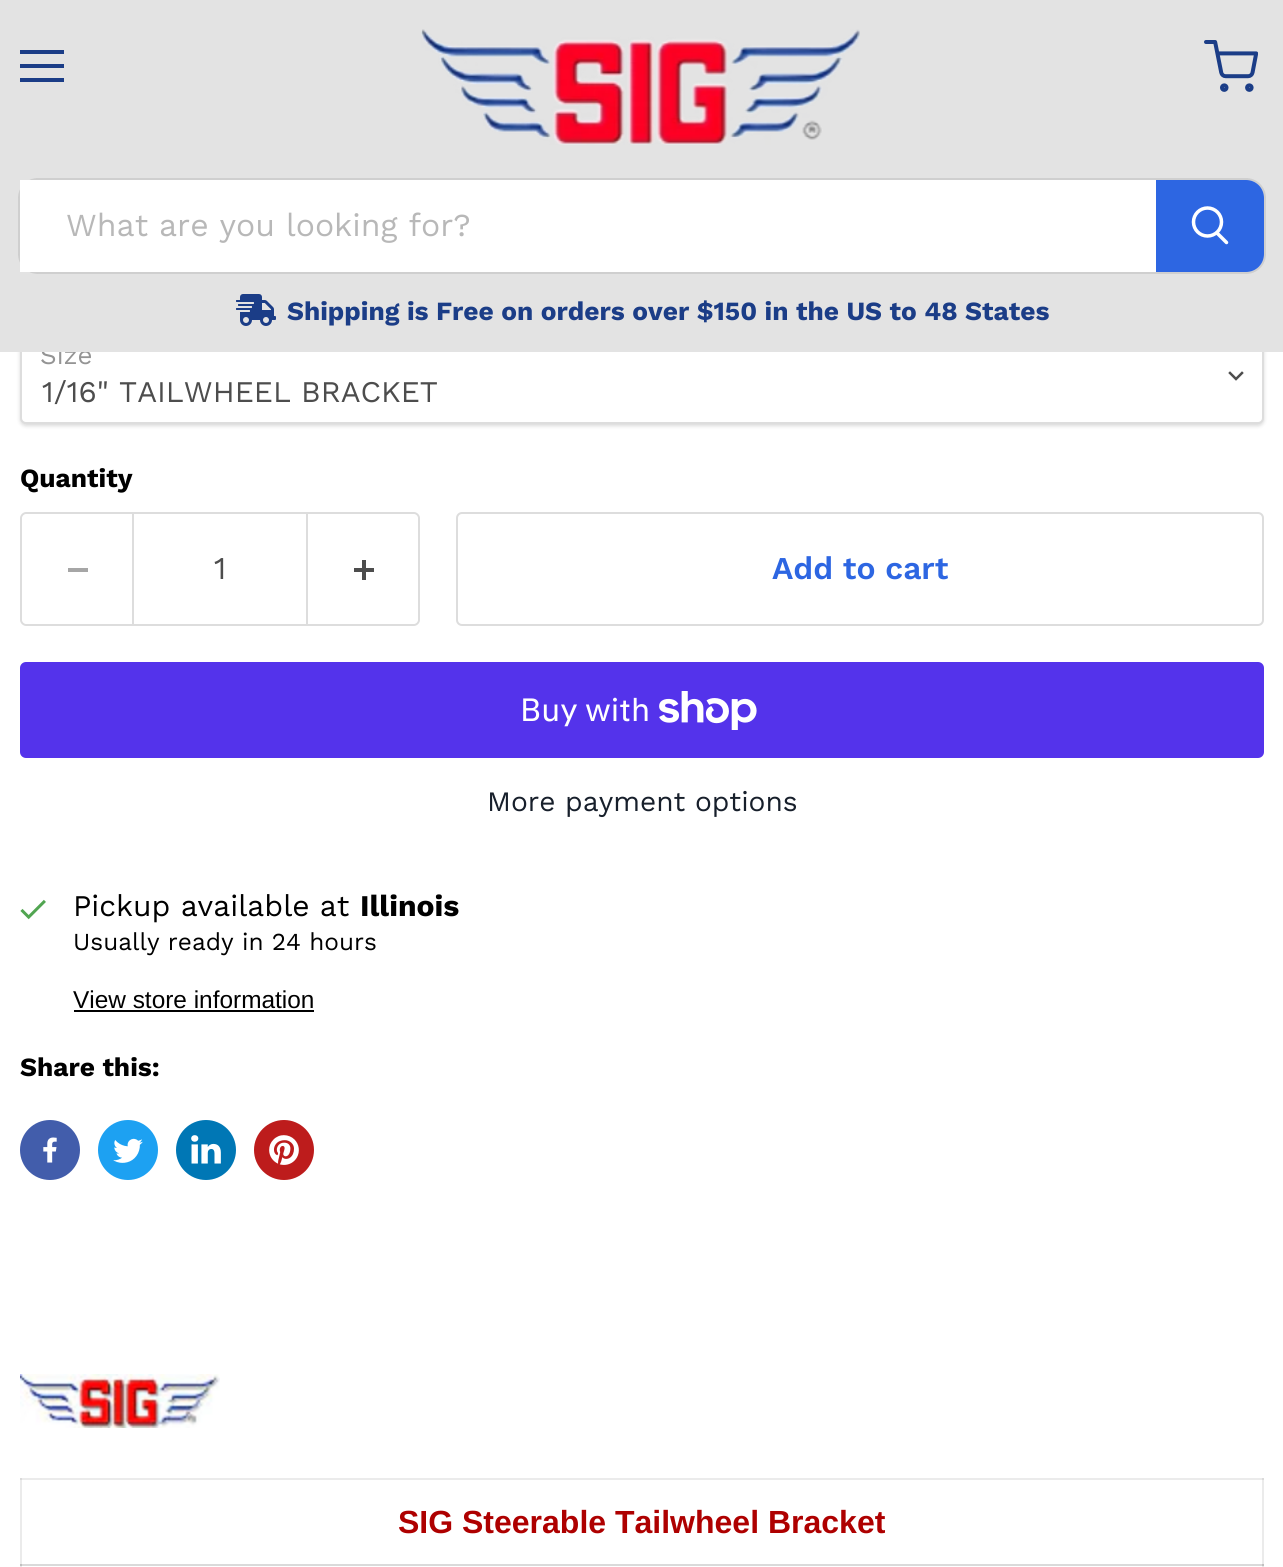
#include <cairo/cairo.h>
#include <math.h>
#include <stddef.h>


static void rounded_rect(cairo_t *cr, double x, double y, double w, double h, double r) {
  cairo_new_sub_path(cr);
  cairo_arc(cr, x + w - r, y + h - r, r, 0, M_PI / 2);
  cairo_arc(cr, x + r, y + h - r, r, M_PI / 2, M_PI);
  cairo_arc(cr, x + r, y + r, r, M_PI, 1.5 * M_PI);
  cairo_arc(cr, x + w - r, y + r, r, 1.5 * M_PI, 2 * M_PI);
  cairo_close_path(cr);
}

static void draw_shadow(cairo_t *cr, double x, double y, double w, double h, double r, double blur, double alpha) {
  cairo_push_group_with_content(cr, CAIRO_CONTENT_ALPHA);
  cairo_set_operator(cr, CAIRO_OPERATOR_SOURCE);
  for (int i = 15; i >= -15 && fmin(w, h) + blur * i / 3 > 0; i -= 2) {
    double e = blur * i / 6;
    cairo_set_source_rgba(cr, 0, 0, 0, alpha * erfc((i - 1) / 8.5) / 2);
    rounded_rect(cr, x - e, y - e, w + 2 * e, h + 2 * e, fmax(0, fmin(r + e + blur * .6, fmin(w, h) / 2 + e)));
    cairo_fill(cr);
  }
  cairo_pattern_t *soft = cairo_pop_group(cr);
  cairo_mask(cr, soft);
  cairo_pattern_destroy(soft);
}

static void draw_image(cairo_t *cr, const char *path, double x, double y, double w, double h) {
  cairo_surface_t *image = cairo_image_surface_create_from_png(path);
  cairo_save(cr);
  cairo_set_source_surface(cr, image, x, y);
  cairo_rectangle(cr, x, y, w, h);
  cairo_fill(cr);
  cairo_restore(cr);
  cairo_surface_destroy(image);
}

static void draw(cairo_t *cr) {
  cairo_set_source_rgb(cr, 1, 1, 1);
  cairo_paint(cr);
  cairo_set_source_rgb(cr, 235 / 255.0, 235 / 255.0, 235 / 255.0);
  cairo_rectangle(cr, 20, 1478, 2, 89);
  cairo_fill(cr);
  cairo_rectangle(cr, 1262, 1478, 2, 89);
  cairo_fill(cr);
  cairo_set_source_rgb(cr, 0, 0, 0);
  draw_shadow(cr, 20, 328, 1244, 98, 6, 2, 0.15);
  cairo_set_source_rgb(cr, 1, 1, 1);
  rounded_rect(cr, 21, 327, 1242, 96, 5);
  cairo_fill_preserve(cr);
  cairo_set_source_rgb(cr, 221 / 255.0, 221 / 255.0, 221 / 255.0);
  cairo_stroke(cr);
  cairo_new_path(cr);
  cairo_move_to(cr, 1236, 379);
  cairo_line_to(cr, 1242, 373);
  cairo_move_to(cr, 1236, 379);
  cairo_line_to(cr, 1230, 373);
  cairo_set_source_rgb(cr, 77 / 255.0, 77 / 255.0, 77 / 255.0);
  cairo_set_line_width(cr, 2.5);
  cairo_set_line_cap(cr, CAIRO_LINE_CAP_SQUARE);
  cairo_stroke(cr);
  cairo_set_source_rgb(cr, 221 / 255.0, 221 / 255.0, 221 / 255.0);
  cairo_set_fill_rule(cr, CAIRO_FILL_RULE_EVEN_ODD);
  cairo_new_path(cr);
  cairo_move_to(cr, 26, 512);
  cairo_line_to(cr, 132, 512);
  cairo_line_to(cr, 132, 626);
  cairo_line_to(cr, 26, 626);
  cairo_curve_to(cr, 23, 626, 20, 623, 20, 620);
  cairo_line_to(cr, 20, 518);
  cairo_curve_to(cr, 20, 515, 23, 512, 26, 512);
  cairo_close_path(cr);
  cairo_move_to(cr, 26, 514);
  cairo_line_to(cr, 132, 514);
  cairo_line_to(cr, 132, 624);
  cairo_line_to(cr, 26, 624);
  cairo_curve_to(cr, 24, 624, 22, 622, 22, 620);
  cairo_line_to(cr, 22, 518);
  cairo_curve_to(cr, 22, 516, 24, 514, 26, 514);
  cairo_close_path(cr);
  cairo_fill(cr);
  cairo_set_source_rgb(cr, 166 / 255.0, 166 / 255.0, 166 / 255.0);
  cairo_rectangle(cr, 68, 568, 20, 4);
  cairo_fill(cr);
  cairo_rectangle(cr, 133, 513, 174, 112);
  cairo_set_source_rgb(cr, 221 / 255.0, 221 / 255.0, 221 / 255.0);
  cairo_set_line_width(cr, 2);
  cairo_set_line_cap(cr, CAIRO_LINE_CAP_BUTT);
  cairo_stroke(cr);
  cairo_new_path(cr);
  cairo_move_to(cr, 308, 512);
  cairo_line_to(cr, 414, 512);
  cairo_curve_to(cr, 417, 512, 420, 515, 420, 518);
  cairo_line_to(cr, 420, 620);
  cairo_curve_to(cr, 420, 623, 417, 626, 414, 626);
  cairo_line_to(cr, 308, 626);
  cairo_close_path(cr);
  cairo_move_to(cr, 308, 514);
  cairo_line_to(cr, 414, 514);
  cairo_curve_to(cr, 416, 514, 418, 516, 418, 518);
  cairo_line_to(cr, 418, 620);
  cairo_curve_to(cr, 418, 622, 416, 624, 414, 624);
  cairo_line_to(cr, 308, 624);
  cairo_close_path(cr);
  cairo_fill(cr);
  draw_image(cr, "images/4.png", 354, 560, 20, 20);
  rounded_rect(cr, 457, 513, 806, 112, 5);
  cairo_stroke(cr);
  cairo_set_source_rgb(cr, 84 / 255.0, 51 / 255.0, 235 / 255.0);
  rounded_rect(cr, 20, 662, 1244, 96, 6);
  cairo_fill(cr);
  draw_image(cr, "images/5.png", 659, 691, 98, 39);
  draw_image(cr, "images/6.png", 20, 899, 26, 21);
  cairo_set_source_rgb(cr, 0, 0, 0);
  cairo_rectangle(cr, 74, 1010, 240, 2);
  cairo_fill(cr);
  cairo_set_source_rgb(cr, 66 / 255.0, 93 / 255.0, 171 / 255.0);
  cairo_arc(cr, 50, 1150, 30, 0, 2 * M_PI);
  cairo_fill(cr);
  draw_image(cr, "images/7.png", 43, 1137, 14, 26);
  cairo_set_source_rgb(cr, 29 / 255.0, 161 / 255.0, 242 / 255.0);
  cairo_arc(cr, 128, 1150, 30, 0, 2 * M_PI);
  cairo_fill(cr);
  draw_image(cr, "images/8.png", 113, 1138, 30, 25);
  cairo_set_source_rgb(cr, 0, 119 / 255.0, 181 / 255.0);
  cairo_arc(cr, 206, 1150, 30, 0, 2 * M_PI);
  cairo_fill(cr);
  draw_image(cr, "images/9.png", 191, 1135, 30, 29);
  cairo_set_source_rgb(cr, 189 / 255.0, 28 / 255.0, 28 / 255.0);
  cairo_arc(cr, 284, 1150, 30, 0, 2 * M_PI);
  cairo_fill(cr);
  draw_image(cr, "images/10.png", 269, 1135, 30, 30);
  draw_image(cr, "images/11.png", 20, 1374, 200, 54);
  cairo_set_source_rgb(cr, 235 / 255.0, 235 / 255.0, 235 / 255.0);
  cairo_rectangle(cr, 20, 1478, 1244, 2);
  cairo_fill(cr);
  cairo_set_source_rgb(cr, 218 / 255.0, 218 / 255.0, 218 / 255.0);
  cairo_rectangle(cr, 20, 1478, 2, 2);
  cairo_fill(cr);
  cairo_rectangle(cr, 1262, 1478, 2, 2);
  cairo_fill(cr);
  cairo_rectangle(cr, 20, 1564, 1244, 2);
  cairo_fill(cr);
  cairo_set_source_rgb(cr, 192 / 255.0, 192 / 255.0, 192 / 255.0);
  cairo_rectangle(cr, 20, 1564, 2, 2);
  cairo_fill(cr);
  cairo_rectangle(cr, 1262, 1564, 2, 2);
  cairo_fill(cr);
  cairo_select_font_face(cr, "Work Sans", CAIRO_FONT_SLANT_NORMAL, CAIRO_FONT_WEIGHT_NORMAL);
  cairo_set_font_size(cr, 26);
  cairo_set_source_rgb(cr, 148 / 255.0, 148 / 255.0, 148 / 255.0);
  cairo_move_to(cr, 40, 364);
  cairo_show_text(cr, "Size");
  cairo_set_source_rgb(cr, 227 / 255.0, 227 / 255.0, 227 / 255.0);
  cairo_rectangle(cr, 0, 0, 1283, 352);
  cairo_fill(cr);
  rounded_rect(cr, 19, 179, 1246, 94, 19);
  cairo_set_source_rgba(cr, 128 / 255.0, 128 / 255.0, 128 / 255.0, 0.2);
  cairo_stroke(cr);
  cairo_set_source_rgb(cr, 1, 1, 1);
  cairo_rectangle(cr, 20, 180, 1136, 92);
  cairo_fill(cr);
  cairo_set_font_size(cr, 32);
  cairo_set_source_rgb(cr, 184 / 255.0, 184 / 255.0, 184 / 255.0);
  cairo_move_to(cr, 66, 236);
  cairo_show_text(cr, "What are you looking for?");
  cairo_set_source_rgb(cr, 45 / 255.0, 102 / 255.0, 226 / 255.0);
  cairo_new_path(cr);
  cairo_move_to(cr, 1157, 181);
  cairo_line_to(cr, 1246, 181);
  cairo_curve_to(cr, 1255.5, 181, 1263, 188.5, 1263, 198);
  cairo_line_to(cr, 1263, 254);
  cairo_curve_to(cr, 1263, 263.5, 1255.5, 271, 1246, 271);
  cairo_line_to(cr, 1157, 271);
  cairo_close_path(cr);
  cairo_fill_preserve(cr);
  cairo_stroke(cr);
  cairo_new_path(cr);
  cairo_move_to(cr, 1226.5, 242.5);
  cairo_line_to(cr, 1217, 233);
  cairo_set_source_rgb(cr, 1, 1, 1);
  cairo_set_line_width(cr, 3.5);
  cairo_set_line_cap(cr, CAIRO_LINE_CAP_ROUND);
  cairo_stroke(cr);
  cairo_arc(cr, 1207.5, 222, 14, 0, 2 * M_PI);
  cairo_set_line_cap(cr, CAIRO_LINE_CAP_BUTT);
  cairo_stroke(cr);
  draw_image(cr, "images/1.png", 1204, 40, 54, 52);
  cairo_set_source_rgb(cr, 27 / 255.0, 61 / 255.0, 135 / 255.0);
  cairo_rectangle(cr, 20, 78, 44, 4);
  cairo_fill(cr);
  cairo_rectangle(cr, 20, 64, 44, 4);
  cairo_fill(cr);
  cairo_rectangle(cr, 20, 50, 44, 4);
  cairo_fill(cr);
  draw_image(cr, "images/3.png", 236, 294, 40, 32);
  cairo_select_font_face(cr, "Work Sans", CAIRO_FONT_SLANT_NORMAL, CAIRO_FONT_WEIGHT_BOLD);
  cairo_set_font_size(cr, 26.25);
  cairo_move_to(cr, 287, 320);
  cairo_show_text(cr, "Shipping is Free on orders over $150 in the US to 48 States");
  draw_image(cr, "images/2.png", 421, 29, 439, 116);
  cairo_select_font_face(cr, "Work Sans", CAIRO_FONT_SLANT_NORMAL, CAIRO_FONT_WEIGHT_NORMAL);
  cairo_set_font_size(cr, 30);
  cairo_set_source_rgb(cr, 77 / 255.0, 77 / 255.0, 77 / 255.0);
  cairo_move_to(cr, 42, 402);
  cairo_show_text(cr, "1/16\" TAILWHEEL BRACKET");
  cairo_select_font_face(cr, "Work Sans", CAIRO_FONT_SLANT_NORMAL, CAIRO_FONT_WEIGHT_BOLD);
  cairo_set_font_size(cr, 26.25);
  cairo_set_source_rgb(cr, 0, 0, 0);
  cairo_move_to(cr, 20, 487);
  cairo_show_text(cr, "Quantity");
  cairo_select_font_face(cr, "Work Sans", CAIRO_FONT_SLANT_NORMAL, CAIRO_FONT_WEIGHT_NORMAL);
  cairo_set_font_size(cr, 31.75);
  cairo_set_source_rgb(cr, 77 / 255.0, 77 / 255.0, 77 / 255.0);
  cairo_move_to(cr, 214, 579);
  cairo_show_text(cr, "1");
  cairo_select_font_face(cr, "Work Sans SemiBold", CAIRO_FONT_SLANT_NORMAL, CAIRO_FONT_WEIGHT_NORMAL);
  cairo_set_source_rgb(cr, 45 / 255.0, 102 / 255.0, 226 / 255.0);
  cairo_move_to(cr, 772, 579);
  cairo_show_text(cr, "Add to cart");
  cairo_select_font_face(cr, "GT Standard", CAIRO_FONT_SLANT_NORMAL, CAIRO_FONT_WEIGHT_NORMAL);
  cairo_set_font_size(cr, 32);
  cairo_set_source_rgb(cr, 1, 1, 1);
  cairo_move_to(cr, 520, 721);
  cairo_show_text(cr, "Buy with");
  cairo_select_font_face(cr, "Work Sans", CAIRO_FONT_SLANT_NORMAL, CAIRO_FONT_WEIGHT_NORMAL);
  cairo_set_font_size(cr, 28.1);
  cairo_set_source_rgb(cr, 23 / 255.0, 31 / 255.0, 43 / 255.0);
  cairo_move_to(cr, 487, 811);
  cairo_show_text(cr, "More payment options");
  cairo_set_font_size(cr, 30);
  cairo_set_source_rgb(cr, 0, 0, 0);
  cairo_move_to(cr, 73, 916);
  cairo_show_text(cr, "Pickup available at");
  cairo_select_font_face(cr, "Work Sans", CAIRO_FONT_SLANT_NORMAL, CAIRO_FONT_WEIGHT_BOLD);
  cairo_move_to(cr, 360, 916);
  cairo_show_text(cr, "Illinois");
  cairo_select_font_face(cr, "Work Sans", CAIRO_FONT_SLANT_NORMAL, CAIRO_FONT_WEIGHT_NORMAL);
  cairo_set_font_size(cr, 24.4);
  cairo_move_to(cr, 73, 950);
  cairo_show_text(cr, "Usually ready in 24 hours");
  cairo_select_font_face(cr, "Liberation Sans", CAIRO_FONT_SLANT_NORMAL, CAIRO_FONT_WEIGHT_NORMAL);
  cairo_move_to(cr, 73, 1008);
  cairo_show_text(cr, "View store information");
  cairo_select_font_face(cr, "Work Sans", CAIRO_FONT_SLANT_NORMAL, CAIRO_FONT_WEIGHT_BOLD);
  cairo_set_font_size(cr, 26.25);
  cairo_move_to(cr, 20, 1076);
  cairo_show_text(cr, "Share this:");
  cairo_select_font_face(cr, "Liberation Sans", CAIRO_FONT_SLANT_NORMAL, CAIRO_FONT_WEIGHT_BOLD);
  cairo_set_font_size(cr, 32);
  cairo_set_source_rgb(cr, 174 / 255.0, 0, 0);
  cairo_move_to(cr, 398, 1533);
  cairo_show_text(cr, "SIG Steerable Tailwheel Bracket");
}

int main(void) {
  cairo_surface_t *surface = cairo_image_surface_create(CAIRO_FORMAT_RGB24, 1283, 1567);
  cairo_t *cr = cairo_create(surface);
  cairo_font_options_t *options = cairo_font_options_create();
  cairo_font_options_set_hint_metrics(options, CAIRO_HINT_METRICS_OFF);
  cairo_font_options_set_hint_style(options, CAIRO_HINT_STYLE_NONE);
  cairo_set_font_options(cr, options);
  cairo_set_miter_limit(cr, 4);
  draw(cr);
  cairo_surface_write_to_png(surface, "out.png");
  cairo_font_options_destroy(options);
  cairo_destroy(cr);
  cairo_surface_destroy(surface);
  return 0;
}
